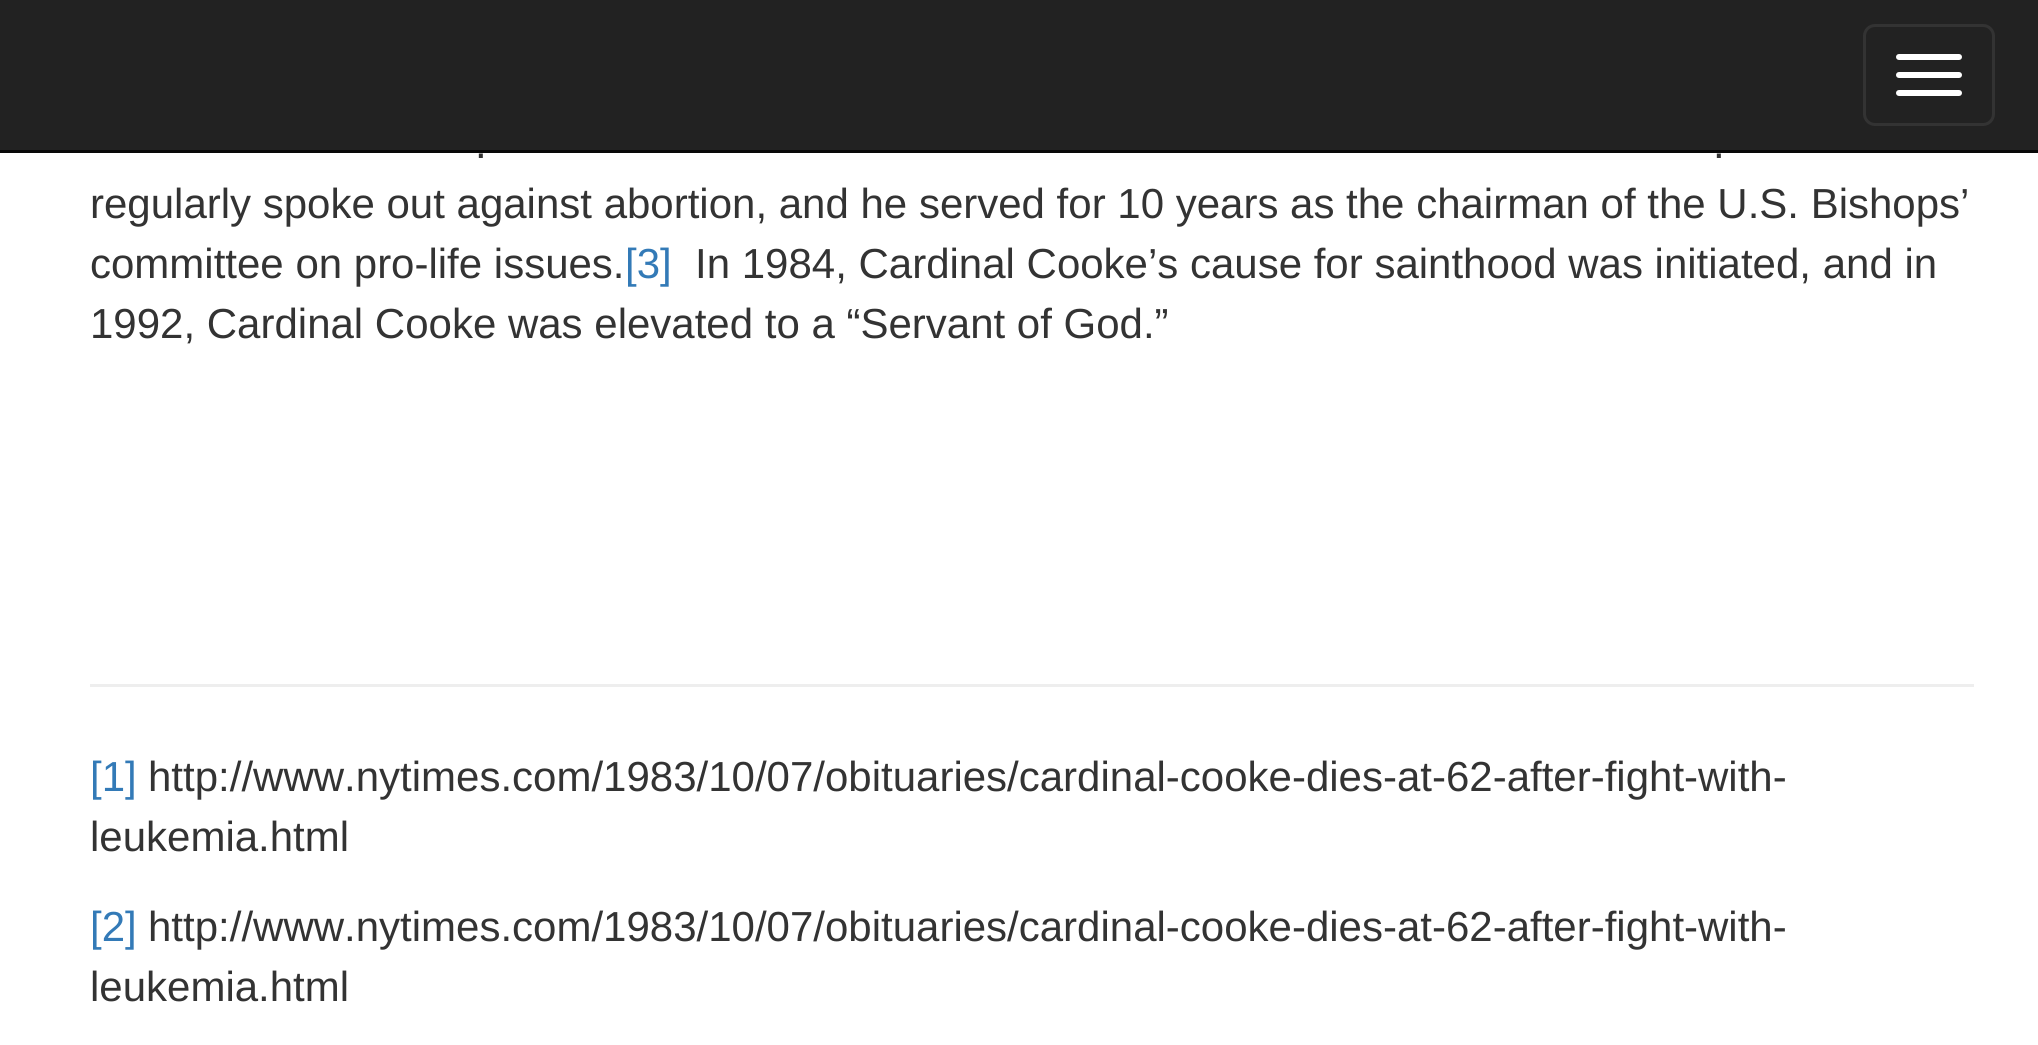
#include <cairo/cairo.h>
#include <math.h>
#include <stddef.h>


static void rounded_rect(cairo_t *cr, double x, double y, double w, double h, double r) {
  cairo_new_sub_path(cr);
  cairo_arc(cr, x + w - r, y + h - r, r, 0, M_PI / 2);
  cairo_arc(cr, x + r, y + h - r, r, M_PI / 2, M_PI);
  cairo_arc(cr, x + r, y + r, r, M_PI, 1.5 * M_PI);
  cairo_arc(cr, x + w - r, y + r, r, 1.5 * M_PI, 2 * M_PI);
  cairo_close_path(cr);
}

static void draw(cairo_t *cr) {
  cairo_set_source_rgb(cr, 1, 1, 1);
  cairo_paint(cr);
  cairo_set_source_rgb(cr, 34 / 255.0, 34 / 255.0, 34 / 255.0);
  cairo_rectangle(cr, 0, 0, 2038, 150);
  cairo_fill(cr);
  cairo_set_source_rgb(cr, 8 / 255.0, 8 / 255.0, 8 / 255.0);
  cairo_rectangle(cr, 0, 150, 2038, 3);
  cairo_fill(cr);
  rounded_rect(cr, 1864.5, 25.5, 129, 99, 10.5);
  cairo_set_source_rgb(cr, 51 / 255.0, 51 / 255.0, 51 / 255.0);
  cairo_set_line_width(cr, 3);
  cairo_stroke(cr);
  cairo_set_source_rgb(cr, 1, 1, 1);
  rounded_rect(cr, 1896, 54, 66, 6, 3);
  cairo_fill(cr);
  rounded_rect(cr, 1896, 72, 66, 6, 3);
  cairo_fill(cr);
  rounded_rect(cr, 1896, 90, 66, 6, 3);
  cairo_fill(cr);
  cairo_set_source_rgb(cr, 238 / 255.0, 238 / 255.0, 238 / 255.0);
  cairo_rectangle(cr, 90, 684, 1884, 3);
  cairo_fill(cr);
  cairo_select_font_face(cr, "Liberation Sans", CAIRO_FONT_SLANT_NORMAL, CAIRO_FONT_WEIGHT_NORMAL);
  cairo_set_font_size(cr, 42);
  cairo_set_source_rgb(cr, 51 / 255.0, 51 / 255.0, 51 / 255.0);
  cairo_move_to(cr, 475, 158);
  cairo_show_text(cr, ".");
  cairo_move_to(cr, 1713, 158);
  cairo_show_text(cr, ".");
  cairo_move_to(cr, 90, 218);
  cairo_show_text(cr, "regularly spoke out against abortion, and he served for 10 years as the chairman of the U.S. Bishops’");
  cairo_move_to(cr, 90, 278);
  cairo_show_text(cr, "committee on pro-life issues.");
  cairo_set_source_rgb(cr, 51 / 255.0, 122 / 255.0, 183 / 255.0);
  cairo_move_to(cr, 625, 278);
  cairo_show_text(cr, "[3]");
  cairo_set_source_rgb(cr, 51 / 255.0, 51 / 255.0, 51 / 255.0);
  cairo_move_to(cr, 695, 278);
  cairo_show_text(cr, "In 1984, Cardinal Cooke’s cause for sainthood was initiated, and in");
  cairo_move_to(cr, 90, 338);
  cairo_show_text(cr, "1992, Cardinal Cooke was elevated to a “Servant of God.”");
  cairo_set_source_rgb(cr, 51 / 255.0, 122 / 255.0, 183 / 255.0);
  cairo_move_to(cr, 90, 791);
  cairo_show_text(cr, "[1]");
  cairo_set_source_rgb(cr, 51 / 255.0, 51 / 255.0, 51 / 255.0);
  cairo_move_to(cr, 148, 791);
  cairo_show_text(cr, "http://www.nytimes.com/1983/10/07/obituaries/cardinal-cooke-dies-at-62-after-fight-with-");
  cairo_move_to(cr, 90, 851);
  cairo_show_text(cr, "leukemia.html");
  cairo_set_source_rgb(cr, 51 / 255.0, 122 / 255.0, 183 / 255.0);
  cairo_move_to(cr, 90, 941);
  cairo_show_text(cr, "[2]");
  cairo_set_source_rgb(cr, 51 / 255.0, 51 / 255.0, 51 / 255.0);
  cairo_move_to(cr, 148, 941);
  cairo_show_text(cr, "http://www.nytimes.com/1983/10/07/obituaries/cardinal-cooke-dies-at-62-after-fight-with-");
  cairo_move_to(cr, 90, 1001);
  cairo_show_text(cr, "leukemia.html");
}

int main(void) {
  cairo_surface_t *surface = cairo_image_surface_create(CAIRO_FORMAT_RGB24, 2038, 1045);
  cairo_t *cr = cairo_create(surface);
  cairo_font_options_t *options = cairo_font_options_create();
  cairo_font_options_set_hint_metrics(options, CAIRO_HINT_METRICS_OFF);
  cairo_font_options_set_hint_style(options, CAIRO_HINT_STYLE_NONE);
  cairo_set_font_options(cr, options);
  cairo_set_miter_limit(cr, 4);
  draw(cr);
  cairo_surface_write_to_png(surface, "out.png");
  cairo_font_options_destroy(options);
  cairo_destroy(cr);
  cairo_surface_destroy(surface);
  return 0;
}
